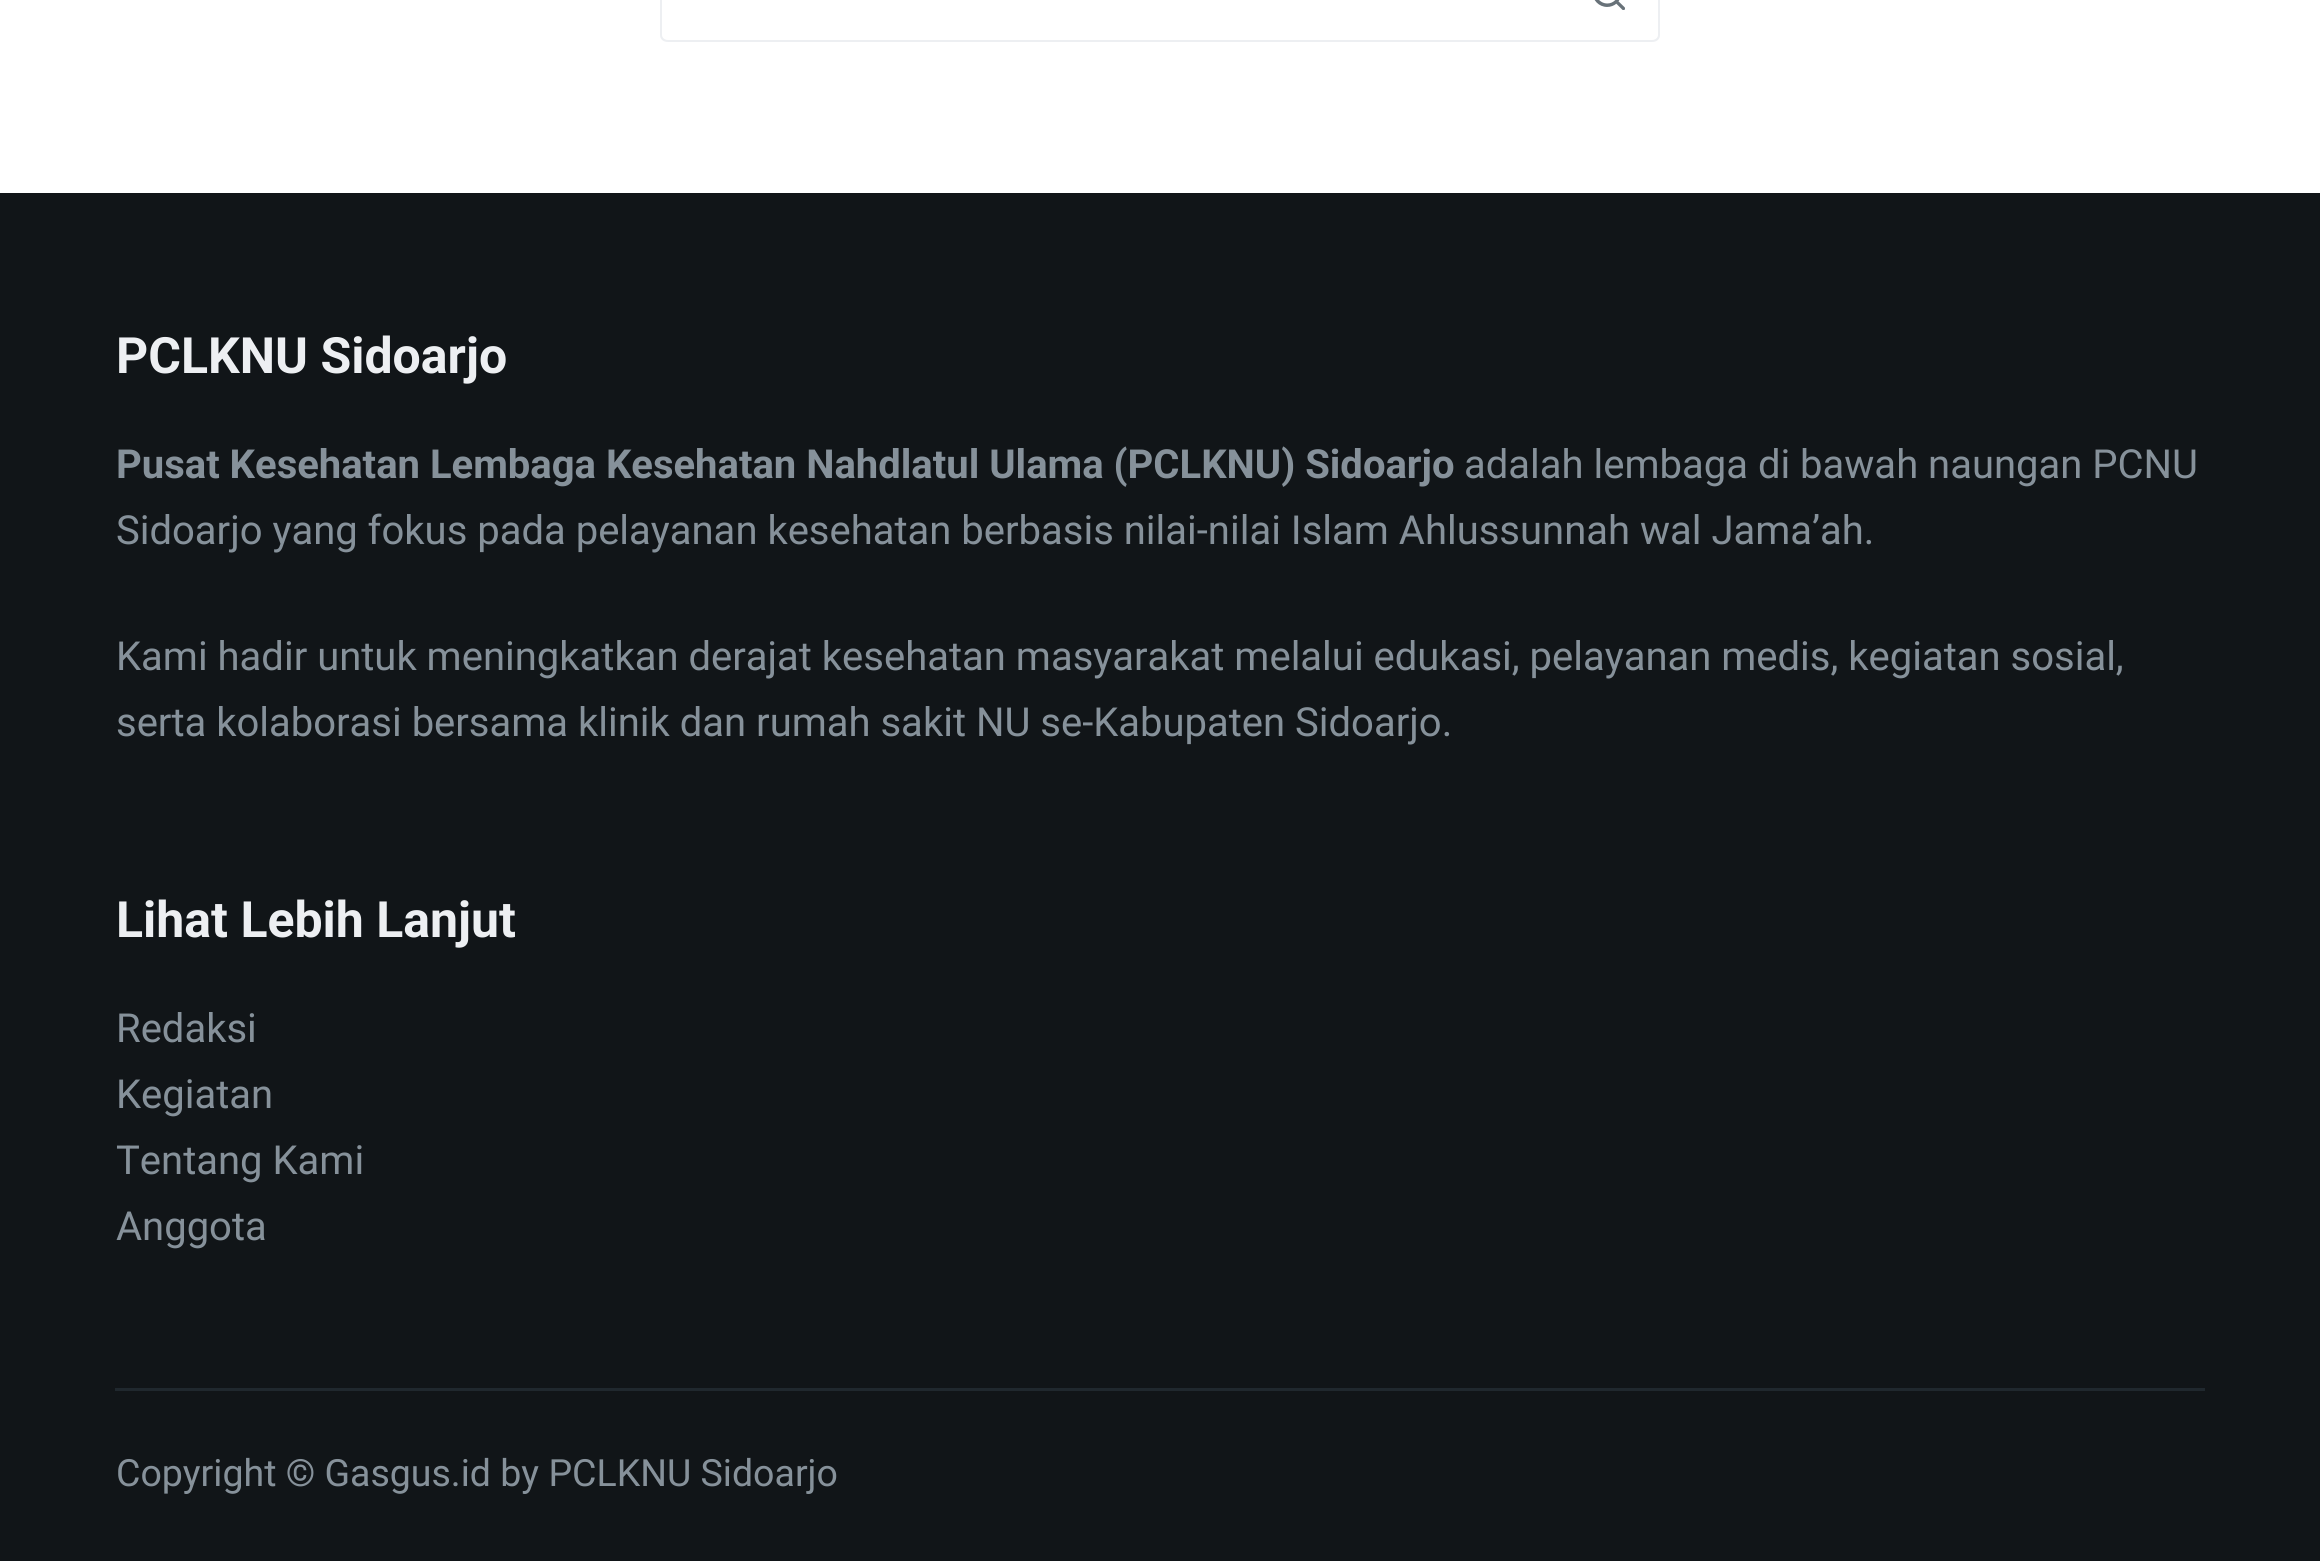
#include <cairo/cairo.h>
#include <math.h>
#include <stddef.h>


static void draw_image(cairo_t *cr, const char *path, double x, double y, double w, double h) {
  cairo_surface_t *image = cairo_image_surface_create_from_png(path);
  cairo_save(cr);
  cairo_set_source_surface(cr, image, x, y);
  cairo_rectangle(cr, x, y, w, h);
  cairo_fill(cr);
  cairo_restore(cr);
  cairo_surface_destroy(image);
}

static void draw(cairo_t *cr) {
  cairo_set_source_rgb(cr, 1, 1, 1);
  cairo_paint(cr);
  cairo_set_source_rgb(cr, 237 / 255.0, 239 / 255.0, 242 / 255.0);
  cairo_set_fill_rule(cr, CAIRO_FILL_RULE_EVEN_ODD);
  cairo_new_path(cr);
  cairo_move_to(cr, 668, -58);
  cairo_line_to(cr, 1560, -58);
  cairo_line_to(cr, 1560, 42);
  cairo_line_to(cr, 668, 42);
  cairo_curve_to(cr, 663, 42, 660, 39, 660, 35);
  cairo_line_to(cr, 660, -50);
  cairo_curve_to(cr, 660, -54, 663, -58, 668, -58);
  cairo_close_path(cr);
  cairo_move_to(cr, 668, -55);
  cairo_line_to(cr, 1560, -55);
  cairo_line_to(cr, 1560, 40);
  cairo_line_to(cr, 668, 40);
  cairo_curve_to(cr, 665, 40, 662, 38, 662, 35);
  cairo_line_to(cr, 662, -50);
  cairo_curve_to(cr, 662, -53, 665, -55, 668, -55);
  cairo_close_path(cr);
  cairo_fill(cr);
  cairo_new_path(cr);
  cairo_move_to(cr, 1560, -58);
  cairo_line_to(cr, 1652, -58);
  cairo_curve_to(cr, 1657, -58, 1660, -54, 1660, -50);
  cairo_line_to(cr, 1660, 35);
  cairo_curve_to(cr, 1660, 39, 1657, 42, 1652, 42);
  cairo_line_to(cr, 1560, 42);
  cairo_close_path(cr);
  cairo_move_to(cr, 1560, -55);
  cairo_line_to(cr, 1652, -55);
  cairo_curve_to(cr, 1655, -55, 1658, -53, 1658, -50);
  cairo_line_to(cr, 1658, 35);
  cairo_curve_to(cr, 1658, 38, 1655, 40, 1652, 40);
  cairo_line_to(cr, 1560, 40);
  cairo_close_path(cr);
  cairo_fill(cr);
  draw_image(cr, "images/1.png", 1594, 0, 31, 10);
  cairo_set_source_rgb(cr, 17 / 255.0, 21 / 255.0, 24 / 255.0);
  cairo_rectangle(cr, 0, 193, 2320, 1368);
  cairo_fill(cr);
  cairo_set_source_rgb(cr, 32 / 255.0, 40 / 255.0, 46 / 255.0);
  cairo_rectangle(cr, 115, 1388, 2090, 3);
  cairo_fill(cr);
  cairo_select_font_face(cr, "Roboto", CAIRO_FONT_SLANT_NORMAL, CAIRO_FONT_WEIGHT_BOLD);
  cairo_set_font_size(cr, 50);
  cairo_set_source_rgb(cr, 237 / 255.0, 239 / 255.0, 242 / 255.0);
  cairo_move_to(cr, 116, 373);
  cairo_show_text(cr, "PCLKNU Sidoarjo");
  cairo_set_font_size(cr, 40);
  cairo_set_source_rgb(cr, 134 / 255.0, 145 / 255.0, 154 / 255.0);
  cairo_move_to(cr, 116, 478);
  cairo_show_text(cr, "Pusat Kesehatan Lembaga Kesehatan Nahdlatul Ulama (PCLKNU) Sidoarjo");
  cairo_select_font_face(cr, "Roboto", CAIRO_FONT_SLANT_NORMAL, CAIRO_FONT_WEIGHT_NORMAL);
  cairo_move_to(cr, 1464, 478);
  cairo_show_text(cr, "adalah lembaga di bawah naungan PCNU");
  cairo_move_to(cr, 116, 544);
  cairo_show_text(cr, "Sidoarjo yang fokus pada pelayanan kesehatan berbasis nilai-nilai Islam Ahlussunnah wal Jama’ah.");
  cairo_move_to(cr, 116, 670);
  cairo_show_text(cr, "Kami hadir untuk meningkatkan derajat kesehatan masyarakat melalui edukasi, pelayanan medis, kegiatan sosial,");
  cairo_move_to(cr, 116, 736);
  cairo_show_text(cr, "serta kolaborasi bersama klinik dan rumah sakit NU se-Kabupaten Sidoarjo.");
  cairo_select_font_face(cr, "Roboto", CAIRO_FONT_SLANT_NORMAL, CAIRO_FONT_WEIGHT_BOLD);
  cairo_set_font_size(cr, 50);
  cairo_set_source_rgb(cr, 237 / 255.0, 239 / 255.0, 242 / 255.0);
  cairo_move_to(cr, 116, 937);
  cairo_show_text(cr, "Lihat Lebih Lanjut");
  cairo_select_font_face(cr, "Roboto", CAIRO_FONT_SLANT_NORMAL, CAIRO_FONT_WEIGHT_NORMAL);
  cairo_set_font_size(cr, 40);
  cairo_set_source_rgb(cr, 134 / 255.0, 145 / 255.0, 154 / 255.0);
  cairo_move_to(cr, 116, 1042);
  cairo_show_text(cr, "Redaksi");
  cairo_move_to(cr, 116, 1108);
  cairo_show_text(cr, "Kegiatan");
  cairo_move_to(cr, 116, 1174);
  cairo_show_text(cr, "Tentang Kami");
  cairo_move_to(cr, 116, 1240);
  cairo_show_text(cr, "Anggota");
  cairo_set_font_size(cr, 37.5);
  cairo_move_to(cr, 116, 1486);
  cairo_show_text(cr, "Copyright © Gasgus.id by PCLKNU Sidoarjo");
}

int main(void) {
  cairo_surface_t *surface = cairo_image_surface_create(CAIRO_FORMAT_RGB24, 2320, 1561);
  cairo_t *cr = cairo_create(surface);
  cairo_font_options_t *options = cairo_font_options_create();
  cairo_font_options_set_hint_metrics(options, CAIRO_HINT_METRICS_OFF);
  cairo_font_options_set_hint_style(options, CAIRO_HINT_STYLE_NONE);
  cairo_set_font_options(cr, options);
  cairo_set_miter_limit(cr, 4);
  draw(cr);
  cairo_surface_write_to_png(surface, "out.png");
  cairo_font_options_destroy(options);
  cairo_destroy(cr);
  cairo_surface_destroy(surface);
  return 0;
}
